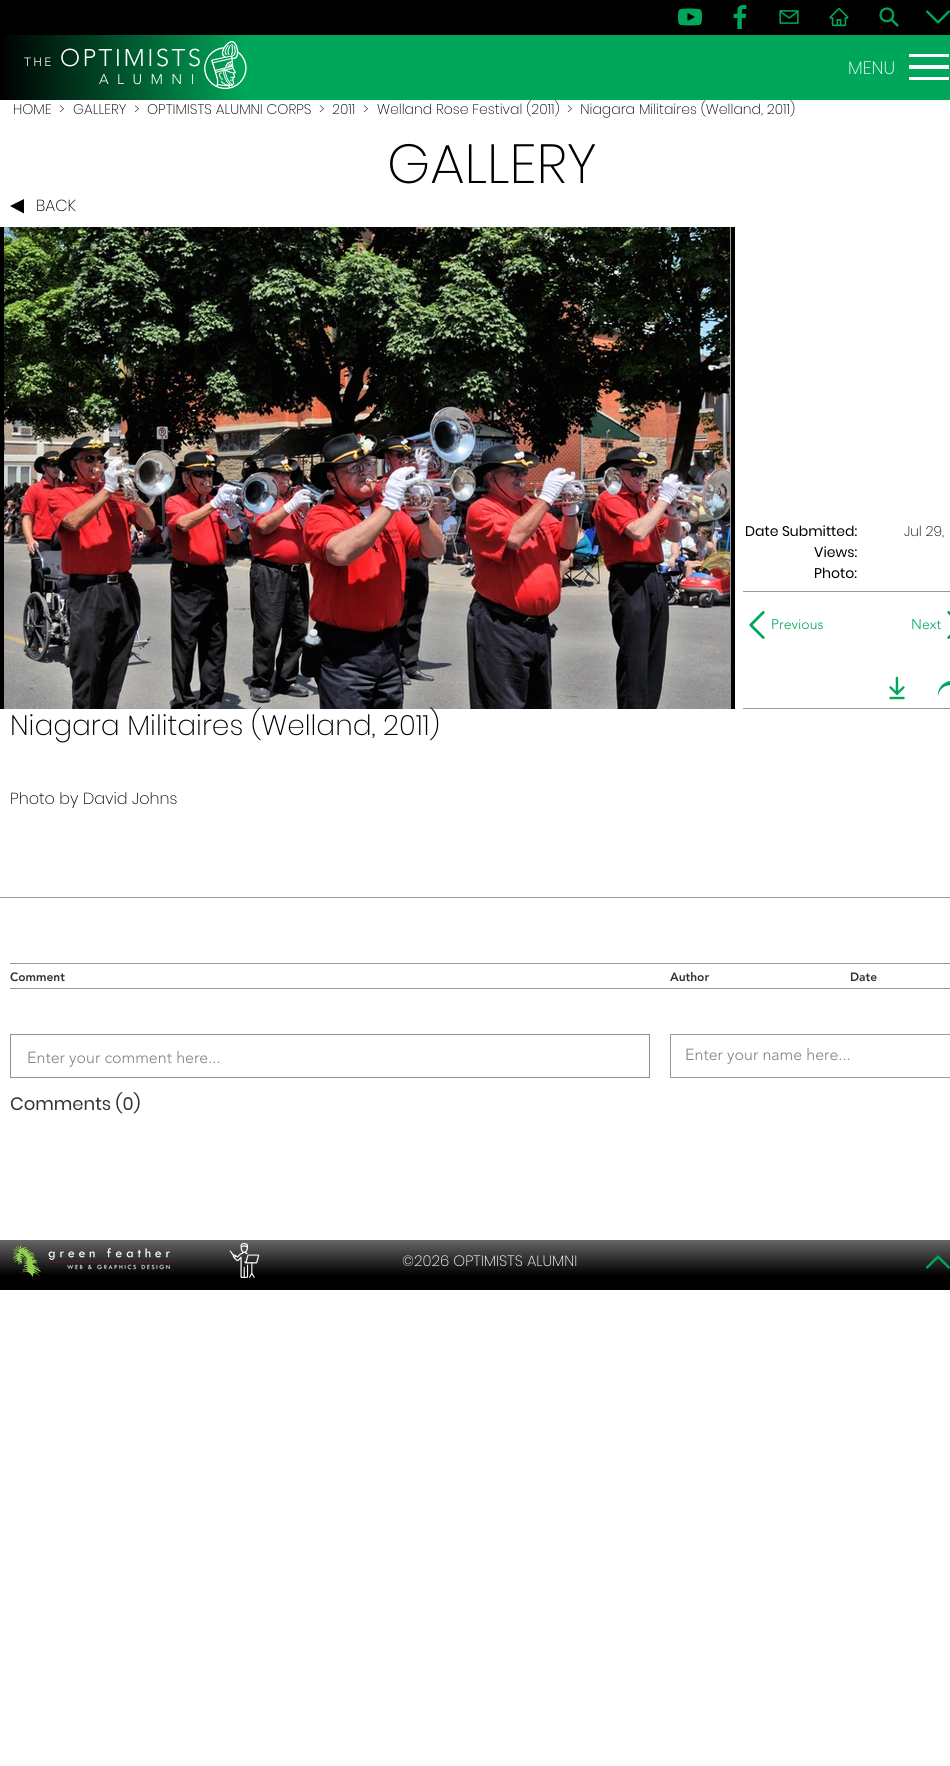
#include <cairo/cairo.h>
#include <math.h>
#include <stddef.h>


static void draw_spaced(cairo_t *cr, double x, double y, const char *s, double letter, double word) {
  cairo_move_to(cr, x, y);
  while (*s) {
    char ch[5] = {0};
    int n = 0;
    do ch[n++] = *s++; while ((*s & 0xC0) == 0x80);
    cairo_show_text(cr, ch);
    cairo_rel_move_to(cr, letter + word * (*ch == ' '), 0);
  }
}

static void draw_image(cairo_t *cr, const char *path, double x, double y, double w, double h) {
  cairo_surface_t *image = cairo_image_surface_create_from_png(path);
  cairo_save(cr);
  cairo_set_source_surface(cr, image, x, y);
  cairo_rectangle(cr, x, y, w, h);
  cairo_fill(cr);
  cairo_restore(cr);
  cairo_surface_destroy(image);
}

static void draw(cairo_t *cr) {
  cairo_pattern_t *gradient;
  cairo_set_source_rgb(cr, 1, 1, 1);
  cairo_paint(cr);
  cairo_set_source_rgb(cr, 0, 0, 0);
  cairo_rectangle(cr, 0, 0, 950, 35);
  cairo_fill(cr);
  draw_image(cr, "images/1.png", 678, 8, 24, 18);
  draw_image(cr, "images/2.png", 733, 5, 14, 24);
  draw_image(cr, "images/3.png", 779, 10, 20, 14);
  draw_image(cr, "images/4.png", 829, 7, 20, 20);
  draw_image(cr, "images/5.png", 879, 7, 20, 20);
  draw_image(cr, "images/6.png", 926, 10, 24, 14);
  cairo_set_source_rgb(cr, 0, 166 / 255.0, 89 / 255.0);
  cairo_rectangle(cr, 245, 35, 705, 65);
  cairo_fill(cr);
  gradient = cairo_pattern_create_linear(0, 68, 245, 67);
  cairo_pattern_add_color_stop_rgba(gradient, 0, 0, 0, 0, 1);
  cairo_pattern_add_color_stop_rgba(gradient, 1, 0, 166 / 255.0, 89 / 255.0, 1);
  cairo_set_source(cr, gradient);
  cairo_pattern_destroy(gradient);
  cairo_rectangle(cr, 0, 35, 245, 65);
  cairo_fill(cr);
  draw_image(cr, "images/7.png", 204, 40, 43, 50);
  cairo_set_source_rgb(cr, 1, 1, 1);
  cairo_rectangle(cr, 909, 77, 40, 3);
  cairo_fill(cr);
  cairo_rectangle(cr, 909, 54, 40, 3);
  cairo_fill(cr);
  cairo_rectangle(cr, 909, 65, 40, 4);
  cairo_fill(cr);
  cairo_set_source_rgb(cr, 0, 0, 0);
  cairo_new_path(cr);
  cairo_move_to(cr, 24, 213.5);
  cairo_line_to(cr, 10, 206);
  cairo_line_to(cr, 24, 199);
  cairo_close_path(cr);
  cairo_fill(cr);
  gradient = cairo_pattern_create_linear(0, 468, 735, 468);
  cairo_pattern_add_color_stop_rgba(gradient, 0.15, 0, 0, 0, 1);
  cairo_pattern_add_color_stop_rgba(gradient, 0.41, 1, 1, 1, 1);
  cairo_pattern_add_color_stop_rgba(gradient, 0.6, 1, 1, 1, 1);
  cairo_pattern_add_color_stop_rgba(gradient, 0.85, 0, 0, 0, 1);
  cairo_set_source(cr, gradient);
  cairo_pattern_destroy(gradient);
  cairo_rectangle(cr, 0, 227, 735, 482);
  cairo_fill(cr);
  cairo_set_source_rgb(cr, 153 / 255.0, 153 / 255.0, 153 / 255.0);
  cairo_rectangle(cr, 730, 227, 1, 482);
  cairo_fill(cr);
  draw_image(cr, "images/8.png", 4, 227, 726, 482);
  cairo_rectangle(cr, 743, 591, 207, 1);
  cairo_fill(cr);
  draw_image(cr, "images/9.png", 749, 611, 16, 28);
  draw_image(cr, "images/10.png", 947, 611, 3, 28);
  draw_image(cr, "images/11.png", 889, 676, 16, 24);
  draw_image(cr, "images/12.png", 937, 681, 13, 16);
  cairo_rectangle(cr, 743, 708, 207, 1);
  cairo_fill(cr);
  cairo_rectangle(cr, 0, 897, 950, 1);
  cairo_fill(cr);
  cairo_rectangle(cr, 10, 963, 940, 1);
  cairo_fill(cr);
  cairo_rectangle(cr, 10, 988, 940, 1);
  cairo_fill(cr);
  cairo_rectangle(cr, 10.5, 1034.5, 639, 43);
  cairo_set_source_rgb(cr, 145 / 255.0, 145 / 255.0, 145 / 255.0);
  cairo_set_line_width(cr, 1);
  cairo_stroke(cr);
  cairo_rectangle(cr, 670.5, 1034.5, 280, 43);
  cairo_set_source_rgb(cr, 153 / 255.0, 153 / 255.0, 153 / 255.0);
  cairo_stroke(cr);
  gradient = cairo_pattern_create_linear(490, 1290, 490, 1240);
  cairo_pattern_add_color_stop_rgba(gradient, 0.29, 0, 0, 0, 1);
  cairo_pattern_add_color_stop_rgba(gradient, 1, 102 / 255.0, 102 / 255.0, 102 / 255.0, 1);
  cairo_set_source(cr, gradient);
  cairo_pattern_destroy(gradient);
  cairo_rectangle(cr, 0, 1240, 950, 50);
  cairo_fill(cr);
  draw_image(cr, "images/13.png", 12, 1245, 161, 33);
  draw_image(cr, "images/14.png", 229, 1243, 31, 35);
  draw_image(cr, "images/15.png", 926, 1255, 24, 14);
  cairo_select_font_face(cr, "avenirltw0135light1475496 Light", CAIRO_FONT_SLANT_NORMAL, CAIRO_FONT_WEIGHT_NORMAL);
  cairo_set_font_size(cr, 12);
  cairo_set_source_rgb(cr, 1, 1, 1);
  draw_spaced(cr, 24, 66, "THE", 2.4, 0);
  cairo_set_font_size(cr, 24);
  draw_spaced(cr, 60, 66, "OPTIMISTS", 2.4, 0);
  cairo_set_font_size(cr, 14);
  draw_spaced(cr, 99, 84, "A L U M N I", 2.4, 0);
  cairo_select_font_face(cr, "Poppins ExtraLight", CAIRO_FONT_SLANT_NORMAL, CAIRO_FONT_WEIGHT_NORMAL);
  cairo_set_font_size(cr, 18);
  cairo_move_to(cr, 848, 74);
  cairo_show_text(cr, "MENU");
  cairo_set_font_size(cr, 14);
  cairo_set_source_rgb(cr, 0, 0, 0);
  cairo_move_to(cr, 13, 114);
  cairo_show_text(cr, "HOME");
  cairo_move_to(cr, 59, 114);
  cairo_show_text(cr, ">");
  cairo_move_to(cr, 73, 114);
  cairo_show_text(cr, "GALLERY");
  cairo_move_to(cr, 134, 114);
  cairo_show_text(cr, ">");
  cairo_move_to(cr, 147, 114);
  cairo_show_text(cr, "OPTIMISTS ALUMNI CORPS");
  cairo_move_to(cr, 319, 114);
  cairo_show_text(cr, ">");
  cairo_move_to(cr, 332, 114);
  cairo_show_text(cr, "2011");
  cairo_move_to(cr, 363, 114);
  cairo_show_text(cr, ">");
  cairo_move_to(cr, 377, 114);
  cairo_show_text(cr, "Welland Rose Festival (2011)");
  cairo_move_to(cr, 567, 114);
  cairo_show_text(cr, ">  Niagara Militaires (Welland, 2011)");
  cairo_set_font_size(cr, 55);
  cairo_move_to(cr, 387, 183);
  cairo_show_text(cr, "GALLERY");
  cairo_set_font_size(cr, 16);
  cairo_move_to(cr, 36, 211);
  cairo_show_text(cr, "BACK");
  cairo_select_font_face(cr, "Poppins", CAIRO_FONT_SLANT_NORMAL, CAIRO_FONT_WEIGHT_NORMAL);
  cairo_set_font_size(cr, 14);
  cairo_move_to(cr, 745, 536);
  cairo_show_text(cr, "Date Submitted:");
  cairo_select_font_face(cr, "Poppins ExtraLight", CAIRO_FONT_SLANT_NORMAL, CAIRO_FONT_WEIGHT_NORMAL);
  cairo_move_to(cr, 904, 536);
  cairo_show_text(cr, "Jul 29,");
  cairo_select_font_face(cr, "Poppins", CAIRO_FONT_SLANT_NORMAL, CAIRO_FONT_WEIGHT_NORMAL);
  cairo_move_to(cr, 814, 557);
  cairo_show_text(cr, "Views:");
  cairo_move_to(cr, 814, 578);
  cairo_show_text(cr, "Photo:");
  cairo_select_font_face(cr, "avenirltw0135light1475496 Light", CAIRO_FONT_SLANT_NORMAL, CAIRO_FONT_WEIGHT_NORMAL);
  cairo_set_source_rgb(cr, 0, 166 / 255.0, 89 / 255.0);
  cairo_move_to(cr, 771, 629);
  cairo_show_text(cr, "Previous");
  cairo_move_to(cr, 911, 629);
  cairo_show_text(cr, "Next");
  cairo_select_font_face(cr, "Poppins ExtraLight", CAIRO_FONT_SLANT_NORMAL, CAIRO_FONT_WEIGHT_NORMAL);
  cairo_set_font_size(cr, 28);
  cairo_set_source_rgb(cr, 0, 0, 0);
  cairo_move_to(cr, 10, 735);
  cairo_show_text(cr, "Niagara Militaires (Welland, 2011)");
  cairo_set_font_size(cr, 16);
  cairo_move_to(cr, 10, 804);
  cairo_show_text(cr, "Photo by David Johns");
  cairo_select_font_face(cr, "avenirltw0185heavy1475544 Black", CAIRO_FONT_SLANT_NORMAL, CAIRO_FONT_WEIGHT_NORMAL);
  cairo_set_font_size(cr, 12);
  cairo_set_source_rgb(cr, 51 / 255.0, 51 / 255.0, 51 / 255.0);
  cairo_move_to(cr, 10, 981);
  cairo_show_text(cr, "Comment");
  cairo_move_to(cr, 670, 981);
  cairo_show_text(cr, "Author");
  cairo_move_to(cr, 850, 981);
  cairo_show_text(cr, "Date");
  cairo_select_font_face(cr, "avenirltw0135light1475496 Light", CAIRO_FONT_SLANT_NORMAL, CAIRO_FONT_WEIGHT_NORMAL);
  cairo_set_font_size(cr, 16);
  cairo_set_source_rgb(cr, 127 / 255.0, 128 / 255.0, 138 / 255.0);
  cairo_move_to(cr, 27, 1063);
  cairo_show_text(cr, "Enter your comment here...");
  cairo_move_to(cr, 685, 1060);
  cairo_show_text(cr, "Enter your name here...");
  cairo_select_font_face(cr, "Poppins", CAIRO_FONT_SLANT_NORMAL, CAIRO_FONT_WEIGHT_NORMAL);
  cairo_set_font_size(cr, 18);
  cairo_set_source_rgb(cr, 51 / 255.0, 51 / 255.0, 51 / 255.0);
  cairo_move_to(cr, 10, 1110);
  cairo_show_text(cr, "Comments (0)");
  cairo_select_font_face(cr, "Poppins ExtraLight", CAIRO_FONT_SLANT_NORMAL, CAIRO_FONT_WEIGHT_NORMAL);
  cairo_set_font_size(cr, 15);
  cairo_set_source_rgb(cr, 1, 1, 1);
  cairo_move_to(cr, 402, 1266);
  cairo_show_text(cr, "©2026 OPTIMISTS ALUMNI");
}

int main(void) {
  cairo_surface_t *surface = cairo_image_surface_create(CAIRO_FORMAT_RGB24, 950, 1766);
  cairo_t *cr = cairo_create(surface);
  cairo_font_options_t *options = cairo_font_options_create();
  cairo_font_options_set_hint_metrics(options, CAIRO_HINT_METRICS_OFF);
  cairo_font_options_set_hint_style(options, CAIRO_HINT_STYLE_NONE);
  cairo_set_font_options(cr, options);
  cairo_set_miter_limit(cr, 4);
  draw(cr);
  cairo_surface_write_to_png(surface, "out.png");
  cairo_font_options_destroy(options);
  cairo_destroy(cr);
  cairo_surface_destroy(surface);
  return 0;
}
